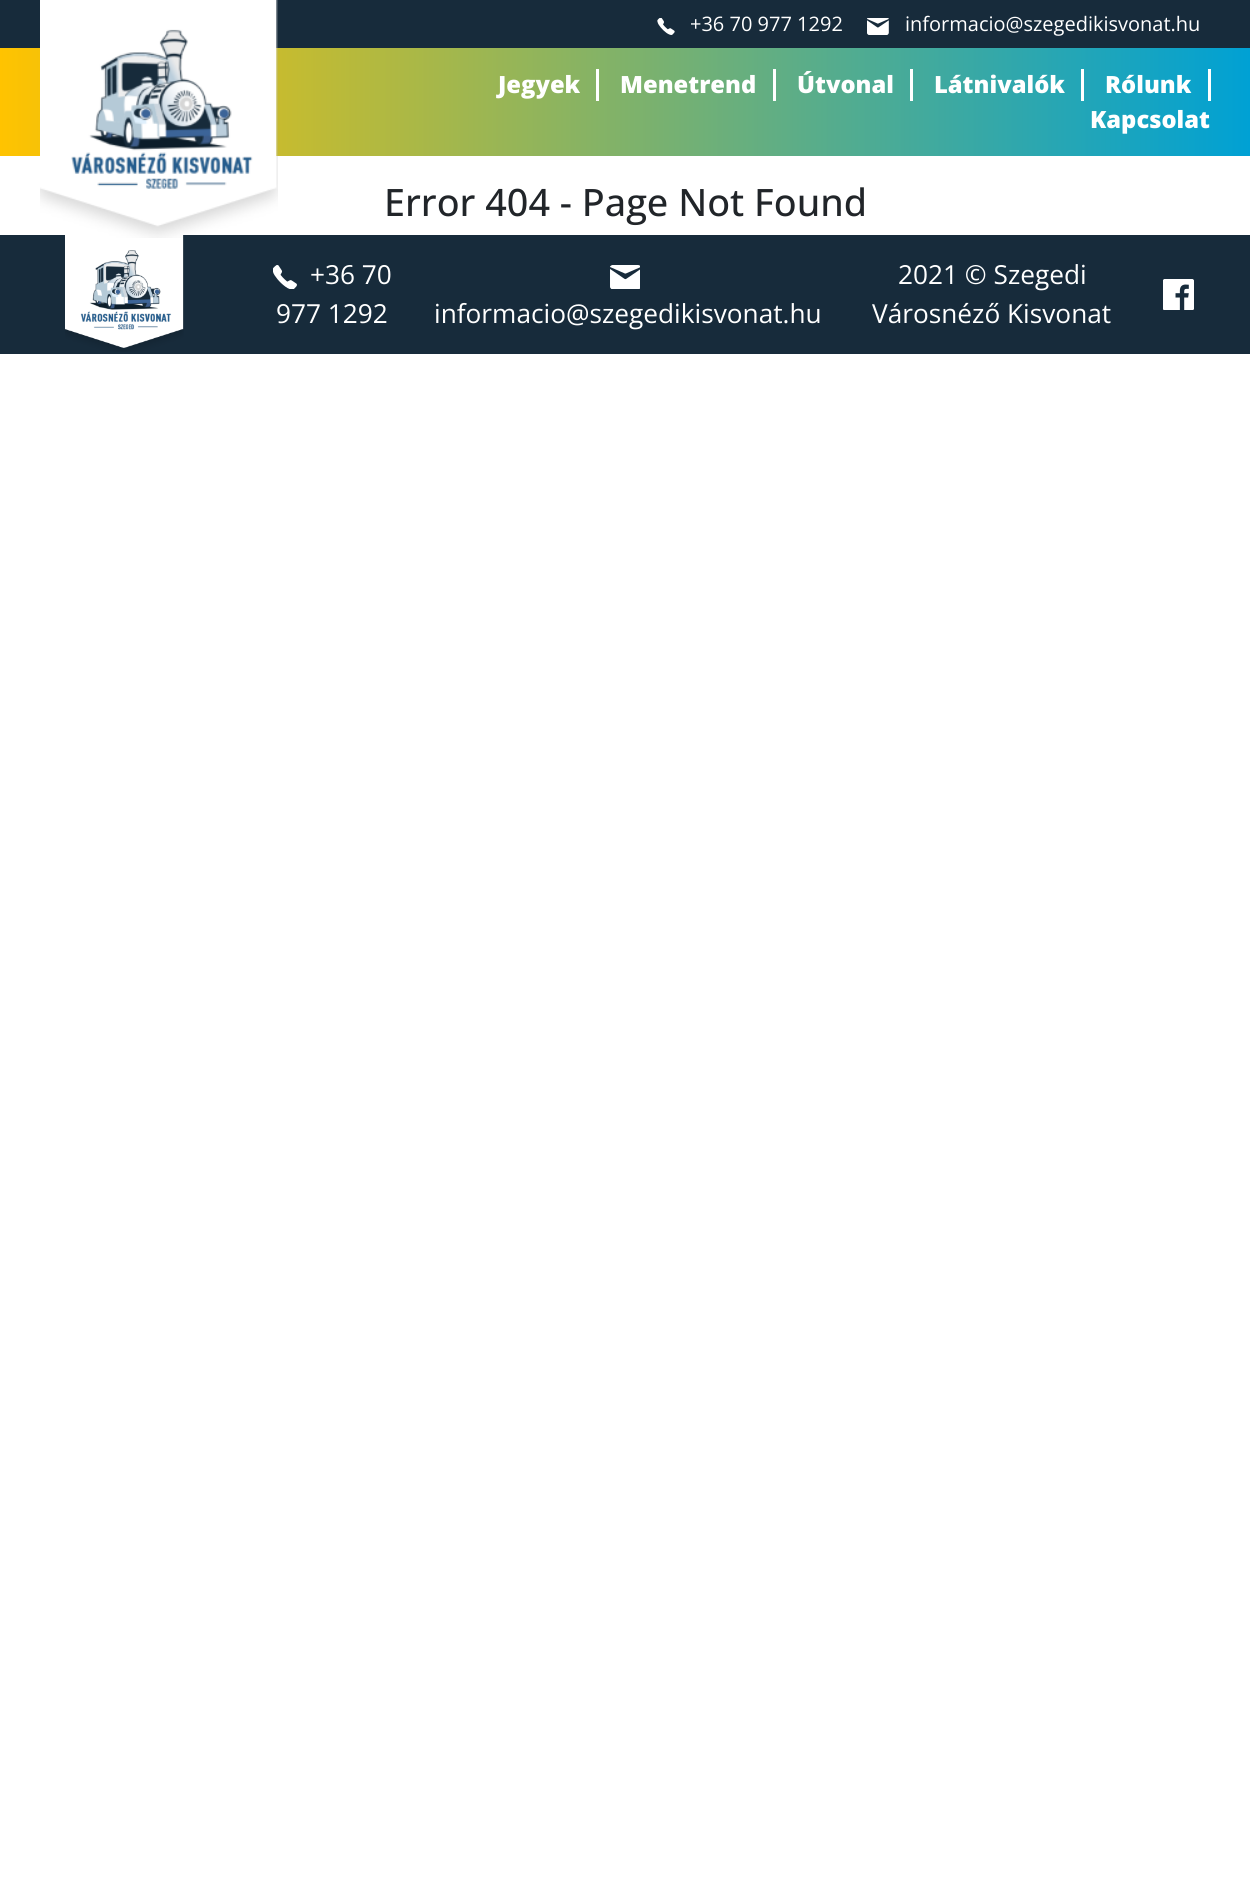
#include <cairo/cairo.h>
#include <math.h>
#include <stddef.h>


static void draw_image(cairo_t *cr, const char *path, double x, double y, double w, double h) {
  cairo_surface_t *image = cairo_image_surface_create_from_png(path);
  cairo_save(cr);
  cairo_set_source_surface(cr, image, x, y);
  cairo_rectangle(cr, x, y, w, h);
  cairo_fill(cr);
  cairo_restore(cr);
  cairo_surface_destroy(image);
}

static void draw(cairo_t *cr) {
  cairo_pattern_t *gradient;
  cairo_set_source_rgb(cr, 1, 1, 1);
  cairo_paint(cr);
  cairo_set_source_rgb(cr, 23 / 255.0, 43 / 255.0, 59 / 255.0);
  cairo_rectangle(cr, 0, 0, 1250, 48);
  cairo_fill(cr);
  draw_image(cr, "images/1.png", 657, 18, 18, 17);
  draw_image(cr, "images/2.png", 867, 18, 22, 17);
  gradient = cairo_pattern_create_linear(0, 102, 1250, 102);
  cairo_pattern_add_color_stop_rgba(gradient, 0, 1, 195 / 255.0, 0, 1);
  cairo_pattern_add_color_stop_rgba(gradient, 1, 0, 161 / 255.0, 212 / 255.0, 1);
  cairo_set_source(cr, gradient);
  cairo_pattern_destroy(gradient);
  cairo_rectangle(cr, 0, 48, 1250, 108);
  cairo_fill(cr);
  cairo_set_source_rgb(cr, 23 / 255.0, 43 / 255.0, 59 / 255.0);
  cairo_rectangle(cr, 0, 235, 1250, 119);
  cairo_fill(cr);
  draw_image(cr, "images/4.png", 65, 235, 119, 117);
  draw_image(cr, "images/3.png", 40, 0, 238, 238);
  cairo_set_source_rgb(cr, 1, 1, 1);
  cairo_rectangle(cr, 596, 69, 3, 32);
  cairo_fill(cr);
  cairo_rectangle(cr, 773, 69, 3, 32);
  cairo_fill(cr);
  cairo_rectangle(cr, 910, 69, 3, 32);
  cairo_fill(cr);
  cairo_rectangle(cr, 1081, 69, 3, 32);
  cairo_fill(cr);
  cairo_rectangle(cr, 1208, 69, 3, 32);
  cairo_fill(cr);
  draw_image(cr, "images/5.png", 273, 265, 24, 24);
  draw_image(cr, "images/6.png", 1163, 279, 31, 31);
  draw_image(cr, "images/7.png", 610, 265, 30, 24);
  cairo_select_font_face(cr, "Open Sans", CAIRO_FONT_SLANT_NORMAL, CAIRO_FONT_WEIGHT_NORMAL);
  cairo_set_font_size(cr, 20);
  cairo_move_to(cr, 690, 31);
  cairo_show_text(cr, "+36 70 977 1292");
  cairo_move_to(cr, 905, 31);
  cairo_show_text(cr, "informacio@szegedikisvonat.hu");
  cairo_select_font_face(cr, "Open Sans ExtraBold", CAIRO_FONT_SLANT_NORMAL, CAIRO_FONT_WEIGHT_NORMAL);
  cairo_set_font_size(cr, 23.75);
  cairo_move_to(cr, 498, 93);
  cairo_show_text(cr, "Jegyek");
  cairo_move_to(cr, 620, 93);
  cairo_show_text(cr, "Menetrend");
  cairo_move_to(cr, 797, 93);
  cairo_show_text(cr, "Útvonal");
  cairo_move_to(cr, 934, 93);
  cairo_show_text(cr, "Látnivalók");
  cairo_move_to(cr, 1105, 93);
  cairo_show_text(cr, "Rólunk");
  cairo_move_to(cr, 1090, 128);
  cairo_show_text(cr, "Kapcsolat");
  cairo_select_font_face(cr, "Open Sans Medium", CAIRO_FONT_SLANT_NORMAL, CAIRO_FONT_WEIGHT_NORMAL);
  cairo_set_font_size(cr, 37.75);
  cairo_set_source_rgb(cr, 33 / 255.0, 37 / 255.0, 41 / 255.0);
  cairo_move_to(cr, 384, 216);
  cairo_show_text(cr, "Error 404 - Page Not Found");
  cairo_select_font_face(cr, "Open Sans", CAIRO_FONT_SLANT_NORMAL, CAIRO_FONT_WEIGHT_NORMAL);
  cairo_set_font_size(cr, 26.25);
  cairo_set_source_rgb(cr, 1, 1, 1);
  cairo_move_to(cr, 310, 284);
  cairo_show_text(cr, "+36 70");
  cairo_move_to(cr, 276, 323);
  cairo_show_text(cr, "977 1292");
  cairo_move_to(cr, 898, 284);
  cairo_show_text(cr, "2021 © Szegedi");
  cairo_move_to(cr, 872, 323);
  cairo_show_text(cr, "Városnéző Kisvonat");
  cairo_move_to(cr, 434, 323);
  cairo_show_text(cr, "informacio@szegedikisvonat.hu");
}

int main(void) {
  cairo_surface_t *surface = cairo_image_surface_create(CAIRO_FORMAT_RGB24, 1250, 1883);
  cairo_t *cr = cairo_create(surface);
  cairo_font_options_t *options = cairo_font_options_create();
  cairo_font_options_set_hint_metrics(options, CAIRO_HINT_METRICS_OFF);
  cairo_font_options_set_hint_style(options, CAIRO_HINT_STYLE_NONE);
  cairo_set_font_options(cr, options);
  cairo_set_miter_limit(cr, 4);
  draw(cr);
  cairo_surface_write_to_png(surface, "out.png");
  cairo_font_options_destroy(options);
  cairo_destroy(cr);
  cairo_surface_destroy(surface);
  return 0;
}
